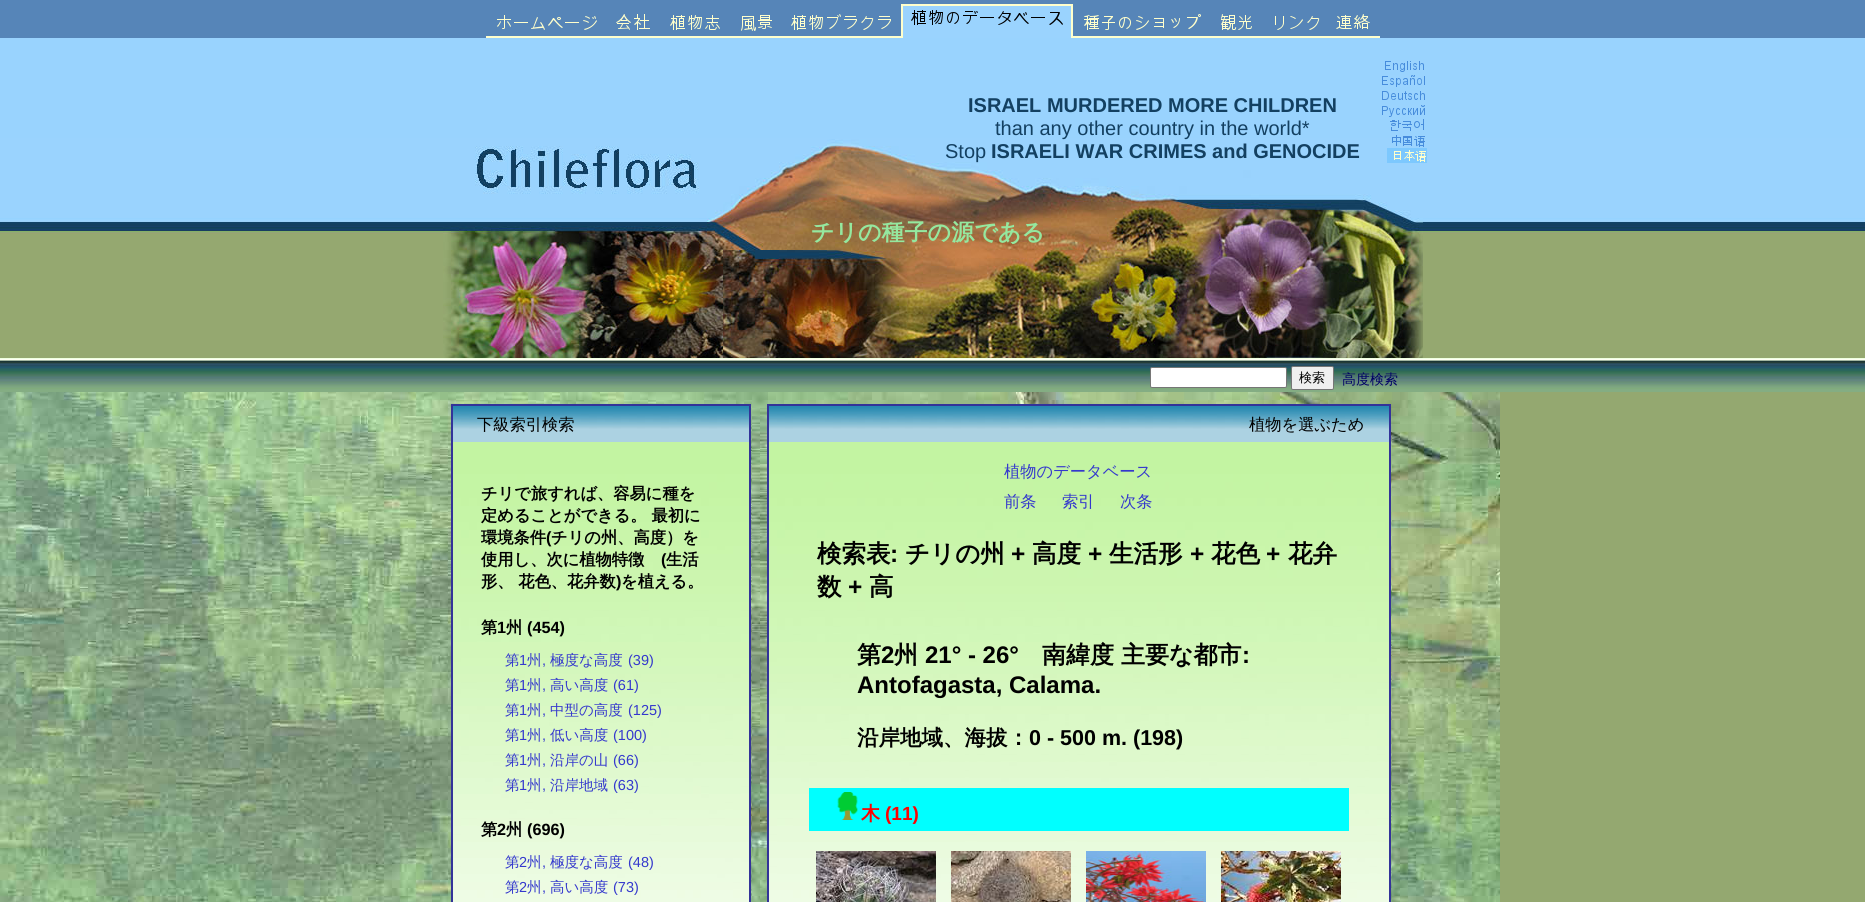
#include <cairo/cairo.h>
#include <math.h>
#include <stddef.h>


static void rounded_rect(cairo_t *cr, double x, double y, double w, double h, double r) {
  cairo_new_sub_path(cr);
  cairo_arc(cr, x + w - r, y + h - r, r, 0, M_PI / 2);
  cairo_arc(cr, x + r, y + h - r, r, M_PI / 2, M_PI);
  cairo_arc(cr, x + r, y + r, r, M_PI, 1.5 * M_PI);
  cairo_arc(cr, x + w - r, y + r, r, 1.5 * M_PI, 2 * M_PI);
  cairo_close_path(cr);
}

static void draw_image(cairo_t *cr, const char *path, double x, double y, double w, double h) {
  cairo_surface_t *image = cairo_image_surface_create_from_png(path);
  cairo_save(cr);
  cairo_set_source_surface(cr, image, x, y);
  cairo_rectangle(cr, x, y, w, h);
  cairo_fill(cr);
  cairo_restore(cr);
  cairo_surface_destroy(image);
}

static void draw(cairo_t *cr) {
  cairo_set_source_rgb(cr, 148 / 255.0, 168 / 255.0, 112 / 255.0);
  cairo_paint(cr);
  draw_image(cr, "images/1.png", 0, 392, 1500, 510);
  cairo_set_source_rgb(cr, 86 / 255.0, 133 / 255.0, 184 / 255.0);
  cairo_rectangle(cr, 0, 0, 1865, 38);
  cairo_fill(cr);
  draw_image(cr, "images/2.png", 486, 15, 120, 23);
  draw_image(cr, "images/3.png", 606, 14, 54, 24);
  draw_image(cr, "images/4.png", 660, 15, 70, 23);
  draw_image(cr, "images/5.png", 730, 15, 51, 23);
  draw_image(cr, "images/6.png", 781, 14, 120, 24);
  draw_image(cr, "images/7.png", 901, 4, 172, 34);
  draw_image(cr, "images/8.png", 1073, 14, 137, 24);
  draw_image(cr, "images/9.png", 1210, 14, 51, 24);
  draw_image(cr, "images/10.png", 1261, 16, 65, 22);
  draw_image(cr, "images/11.png", 1326, 14, 54, 24);
  cairo_set_source_rgb(cr, 153 / 255.0, 211 / 255.0, 254 / 255.0);
  cairo_rectangle(cr, 0, 38, 1865, 100);
  cairo_fill(cr);
  draw_image(cr, "images/12.png", 1385, 61, 39, 11);
  draw_image(cr, "images/13.png", 1382, 75, 43, 12);
  draw_image(cr, "images/14.png", 1382, 91, 43, 9);
  draw_image(cr, "images/15.png", 1382, 105, 43, 12);
  draw_image(cr, "images/16.png", 1390, 119, 34, 12);
  draw_image(cr, "images/19.png", 0, 138, 1865, 220);
  draw_image(cr, "images/20.png", 443, 139, 980, 219);
  draw_image(cr, "images/17.png", 1392, 135, 33, 12);
  draw_image(cr, "images/18.png", 1387, 148, 40, 15);
  draw_image(cr, "images/21.png", 0, 358, 1865, 34);
  cairo_set_source_rgb(cr, 1, 1, 1);
  rounded_rect(cr, 1150.5, 367.5, 136, 20, 1.5);
  cairo_fill_preserve(cr);
  cairo_set_source_rgb(cr, 118 / 255.0, 118 / 255.0, 118 / 255.0);
  cairo_set_line_width(cr, 1);
  cairo_stroke(cr);
  cairo_set_source_rgb(cr, 239 / 255.0, 239 / 255.0, 239 / 255.0);
  rounded_rect(cr, 1291.5, 366.5, 42, 23, 1.5);
  cairo_fill_preserve(cr);
  cairo_set_source_rgb(cr, 118 / 255.0, 118 / 255.0, 118 / 255.0);
  cairo_stroke(cr);
  cairo_set_source_rgb(cr, 172 / 255.0, 210 / 255.0, 226 / 255.0);
  cairo_rectangle(cr, 453, 429, 296, 13);
  cairo_fill(cr);
  draw_image(cr, "images/22.png", 453, 406, 296, 23);
  cairo_set_source_rgb(cr, 51 / 255.0, 51 / 255.0, 153 / 255.0);
  cairo_rectangle(cr, 451, 404, 300, 2);
  cairo_fill(cr);
  cairo_rectangle(cr, 749, 404, 2, 498);
  cairo_fill(cr);
  cairo_rectangle(cr, 451, 404, 2, 498);
  cairo_fill(cr);
  draw_image(cr, "images/23.png", 453, 442, 296, 460);
  cairo_rectangle(cr, 768, 405, 622, 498);
  cairo_set_line_width(cr, 2);
  cairo_stroke(cr);
  cairo_set_source_rgb(cr, 172 / 255.0, 210 / 255.0, 226 / 255.0);
  cairo_rectangle(cr, 769, 429, 620, 13);
  cairo_fill(cr);
  draw_image(cr, "images/24.png", 769, 406, 620, 23);
  draw_image(cr, "images/25.png", 769, 442, 620, 460);
  cairo_set_source_rgb(cr, 0, 1, 1);
  cairo_rectangle(cr, 809, 788, 540, 43);
  cairo_fill(cr);
  draw_image(cr, "images/26.png", 837, 792, 21, 28);
  draw_image(cr, "images/27.png", 816, 851, 120, 51);
  draw_image(cr, "images/28.png", 951, 851, 120, 51);
  draw_image(cr, "images/29.png", 1086, 851, 120, 51);
  draw_image(cr, "images/30.png", 1221, 851, 120, 51);
  cairo_select_font_face(cr, "Liberation Sans", CAIRO_FONT_SLANT_NORMAL, CAIRO_FONT_WEIGHT_BOLD);
  cairo_set_font_size(cr, 20);
  cairo_set_source_rgb(cr, 19 / 255.0, 64 / 255.0, 97 / 255.0);
  cairo_move_to(cr, 968, 112);
  cairo_show_text(cr, "ISRAEL MURDERED MORE CHILDREN");
  cairo_select_font_face(cr, "Liberation Sans", CAIRO_FONT_SLANT_NORMAL, CAIRO_FONT_WEIGHT_NORMAL);
  cairo_move_to(cr, 995, 135);
  cairo_show_text(cr, "than any other country in the world*");
  cairo_move_to(cr, 945, 158);
  cairo_show_text(cr, "Stop");
  cairo_select_font_face(cr, "Liberation Sans", CAIRO_FONT_SLANT_NORMAL, CAIRO_FONT_WEIGHT_BOLD);
  cairo_move_to(cr, 991, 158);
  cairo_show_text(cr, "ISRAELI WAR CRIMES and GENOCIDE");
  cairo_select_font_face(cr, "WenQuanYi Zen Hei", CAIRO_FONT_SLANT_NORMAL, CAIRO_FONT_WEIGHT_BOLD);
  cairo_set_font_size(cr, 23);
  cairo_set_source_rgb(cr, 149 / 255.0, 232 / 255.0, 159 / 255.0);
  cairo_move_to(cr, 811, 240);
  cairo_show_text(cr, "チリの種子の源である");
  cairo_select_font_face(cr, "WenQuanYi Zen Hei Medium", CAIRO_FONT_SLANT_NORMAL, CAIRO_FONT_WEIGHT_NORMAL);
  cairo_set_font_size(cr, 13);
  cairo_set_source_rgb(cr, 0, 0, 0);
  cairo_move_to(cr, 1299, 382);
  cairo_show_text(cr, "検索");
  cairo_set_font_size(cr, 14);
  cairo_set_source_rgb(cr, 0, 0, 102 / 255.0);
  cairo_move_to(cr, 1342, 384);
  cairo_show_text(cr, "高度検索");
  cairo_set_font_size(cr, 16.25);
  cairo_set_source_rgb(cr, 0, 0, 0);
  cairo_move_to(cr, 477, 430);
  cairo_show_text(cr, "下級索引検索");
  cairo_select_font_face(cr, "WenQuanYi Zen Hei", CAIRO_FONT_SLANT_NORMAL, CAIRO_FONT_WEIGHT_BOLD);
  cairo_move_to(cr, 481, 499);
  cairo_show_text(cr, "チリで旅すれば、容易に種を");
  cairo_move_to(cr, 481, 521);
  cairo_show_text(cr, "定めることができる。 最初に");
  cairo_save(cr);
  cairo_rectangle(cr, 481, 477, 252, 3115);
  cairo_clip(cr);
  cairo_move_to(cr, 481, 543);
  cairo_show_text(cr, "環境条件");
  cairo_restore(cr);
  cairo_select_font_face(cr, "Liberation Sans", CAIRO_FONT_SLANT_NORMAL, CAIRO_FONT_WEIGHT_BOLD);
  cairo_move_to(cr, 546, 543);
  cairo_show_text(cr, "(");
  cairo_select_font_face(cr, "WenQuanYi Zen Hei", CAIRO_FONT_SLANT_NORMAL, CAIRO_FONT_WEIGHT_BOLD);
  cairo_move_to(cr, 551, 543);
  cairo_show_text(cr, "チリの州、高度）を");
  cairo_move_to(cr, 481, 565);
  cairo_show_text(cr, "使用し、次に植物特徴");
  cairo_select_font_face(cr, "Liberation Sans", CAIRO_FONT_SLANT_NORMAL, CAIRO_FONT_WEIGHT_BOLD);
  cairo_move_to(cr, 661, 565);
  cairo_show_text(cr, "(");
  cairo_select_font_face(cr, "WenQuanYi Zen Hei", CAIRO_FONT_SLANT_NORMAL, CAIRO_FONT_WEIGHT_BOLD);
  cairo_move_to(cr, 666, 565);
  cairo_show_text(cr, "生活");
  cairo_move_to(cr, 481, 587);
  cairo_show_text(cr, "形、 花色、花弁数");
  cairo_select_font_face(cr, "Liberation Sans", CAIRO_FONT_SLANT_NORMAL, CAIRO_FONT_WEIGHT_BOLD);
  cairo_move_to(cr, 616, 587);
  cairo_show_text(cr, ")");
  cairo_select_font_face(cr, "WenQuanYi Zen Hei", CAIRO_FONT_SLANT_NORMAL, CAIRO_FONT_WEIGHT_BOLD);
  cairo_move_to(cr, 621, 587);
  cairo_show_text(cr, "を植える。");
  cairo_move_to(cr, 481, 633);
  cairo_show_text(cr, "第");
  cairo_select_font_face(cr, "Liberation Sans", CAIRO_FONT_SLANT_NORMAL, CAIRO_FONT_WEIGHT_BOLD);
  cairo_move_to(cr, 497, 633);
  cairo_show_text(cr, "1");
  cairo_select_font_face(cr, "WenQuanYi Zen Hei", CAIRO_FONT_SLANT_NORMAL, CAIRO_FONT_WEIGHT_BOLD);
  cairo_move_to(cr, 506, 633);
  cairo_show_text(cr, "州");
  cairo_select_font_face(cr, "Liberation Sans", CAIRO_FONT_SLANT_NORMAL, CAIRO_FONT_WEIGHT_BOLD);
  cairo_move_to(cr, 527, 633);
  cairo_show_text(cr, "(454)");
  cairo_select_font_face(cr, "WenQuanYi Zen Hei Medium", CAIRO_FONT_SLANT_NORMAL, CAIRO_FONT_WEIGHT_NORMAL);
  cairo_set_font_size(cr, 14.5);
  cairo_set_source_rgb(cr, 52 / 255.0, 56 / 255.0, 205 / 255.0);
  cairo_move_to(cr, 505, 665);
  cairo_show_text(cr, "第");
  cairo_select_font_face(cr, "Liberation Sans", CAIRO_FONT_SLANT_NORMAL, CAIRO_FONT_WEIGHT_NORMAL);
  cairo_move_to(cr, 519, 665);
  cairo_show_text(cr, "1");
  cairo_select_font_face(cr, "WenQuanYi Zen Hei Medium", CAIRO_FONT_SLANT_NORMAL, CAIRO_FONT_WEIGHT_NORMAL);
  cairo_move_to(cr, 527, 665);
  cairo_show_text(cr, "州");
  cairo_select_font_face(cr, "Liberation Sans", CAIRO_FONT_SLANT_NORMAL, CAIRO_FONT_WEIGHT_NORMAL);
  cairo_move_to(cr, 542, 665);
  cairo_show_text(cr, ",");
  cairo_select_font_face(cr, "WenQuanYi Zen Hei Medium", CAIRO_FONT_SLANT_NORMAL, CAIRO_FONT_WEIGHT_NORMAL);
  cairo_move_to(cr, 550, 665);
  cairo_show_text(cr, "極度な高度");
  cairo_select_font_face(cr, "Liberation Sans", CAIRO_FONT_SLANT_NORMAL, CAIRO_FONT_WEIGHT_NORMAL);
  cairo_move_to(cr, 628, 665);
  cairo_show_text(cr, "(39)");
  cairo_select_font_face(cr, "WenQuanYi Zen Hei Medium", CAIRO_FONT_SLANT_NORMAL, CAIRO_FONT_WEIGHT_NORMAL);
  cairo_move_to(cr, 505, 690);
  cairo_show_text(cr, "第");
  cairo_select_font_face(cr, "Liberation Sans", CAIRO_FONT_SLANT_NORMAL, CAIRO_FONT_WEIGHT_NORMAL);
  cairo_move_to(cr, 519, 690);
  cairo_show_text(cr, "1");
  cairo_select_font_face(cr, "WenQuanYi Zen Hei Medium", CAIRO_FONT_SLANT_NORMAL, CAIRO_FONT_WEIGHT_NORMAL);
  cairo_move_to(cr, 527, 690);
  cairo_show_text(cr, "州");
  cairo_select_font_face(cr, "Liberation Sans", CAIRO_FONT_SLANT_NORMAL, CAIRO_FONT_WEIGHT_NORMAL);
  cairo_move_to(cr, 542, 690);
  cairo_show_text(cr, ",");
  cairo_select_font_face(cr, "WenQuanYi Zen Hei Medium", CAIRO_FONT_SLANT_NORMAL, CAIRO_FONT_WEIGHT_NORMAL);
  cairo_move_to(cr, 550, 690);
  cairo_show_text(cr, "高い高度");
  cairo_select_font_face(cr, "Liberation Sans", CAIRO_FONT_SLANT_NORMAL, CAIRO_FONT_WEIGHT_NORMAL);
  cairo_move_to(cr, 613, 690);
  cairo_show_text(cr, "(61)");
  cairo_select_font_face(cr, "WenQuanYi Zen Hei Medium", CAIRO_FONT_SLANT_NORMAL, CAIRO_FONT_WEIGHT_NORMAL);
  cairo_move_to(cr, 505, 715);
  cairo_show_text(cr, "第");
  cairo_select_font_face(cr, "Liberation Sans", CAIRO_FONT_SLANT_NORMAL, CAIRO_FONT_WEIGHT_NORMAL);
  cairo_move_to(cr, 519, 715);
  cairo_show_text(cr, "1");
  cairo_select_font_face(cr, "WenQuanYi Zen Hei Medium", CAIRO_FONT_SLANT_NORMAL, CAIRO_FONT_WEIGHT_NORMAL);
  cairo_move_to(cr, 527, 715);
  cairo_show_text(cr, "州");
  cairo_select_font_face(cr, "Liberation Sans", CAIRO_FONT_SLANT_NORMAL, CAIRO_FONT_WEIGHT_NORMAL);
  cairo_move_to(cr, 542, 715);
  cairo_show_text(cr, ",");
  cairo_select_font_face(cr, "WenQuanYi Zen Hei Medium", CAIRO_FONT_SLANT_NORMAL, CAIRO_FONT_WEIGHT_NORMAL);
  cairo_move_to(cr, 550, 715);
  cairo_show_text(cr, "中型の高度");
  cairo_select_font_face(cr, "Liberation Sans", CAIRO_FONT_SLANT_NORMAL, CAIRO_FONT_WEIGHT_NORMAL);
  cairo_move_to(cr, 628, 715);
  cairo_show_text(cr, "(125)");
  cairo_select_font_face(cr, "WenQuanYi Zen Hei Medium", CAIRO_FONT_SLANT_NORMAL, CAIRO_FONT_WEIGHT_NORMAL);
  cairo_move_to(cr, 505, 740);
  cairo_show_text(cr, "第");
  cairo_select_font_face(cr, "Liberation Sans", CAIRO_FONT_SLANT_NORMAL, CAIRO_FONT_WEIGHT_NORMAL);
  cairo_move_to(cr, 519, 740);
  cairo_show_text(cr, "1");
  cairo_select_font_face(cr, "WenQuanYi Zen Hei Medium", CAIRO_FONT_SLANT_NORMAL, CAIRO_FONT_WEIGHT_NORMAL);
  cairo_move_to(cr, 527, 740);
  cairo_show_text(cr, "州");
  cairo_select_font_face(cr, "Liberation Sans", CAIRO_FONT_SLANT_NORMAL, CAIRO_FONT_WEIGHT_NORMAL);
  cairo_move_to(cr, 542, 740);
  cairo_show_text(cr, ",");
  cairo_select_font_face(cr, "WenQuanYi Zen Hei Medium", CAIRO_FONT_SLANT_NORMAL, CAIRO_FONT_WEIGHT_NORMAL);
  cairo_move_to(cr, 550, 740);
  cairo_show_text(cr, "低い高度");
  cairo_select_font_face(cr, "Liberation Sans", CAIRO_FONT_SLANT_NORMAL, CAIRO_FONT_WEIGHT_NORMAL);
  cairo_move_to(cr, 613, 740);
  cairo_show_text(cr, "(100)");
  cairo_select_font_face(cr, "WenQuanYi Zen Hei Medium", CAIRO_FONT_SLANT_NORMAL, CAIRO_FONT_WEIGHT_NORMAL);
  cairo_move_to(cr, 505, 765);
  cairo_show_text(cr, "第");
  cairo_select_font_face(cr, "Liberation Sans", CAIRO_FONT_SLANT_NORMAL, CAIRO_FONT_WEIGHT_NORMAL);
  cairo_move_to(cr, 519, 765);
  cairo_show_text(cr, "1");
  cairo_select_font_face(cr, "WenQuanYi Zen Hei Medium", CAIRO_FONT_SLANT_NORMAL, CAIRO_FONT_WEIGHT_NORMAL);
  cairo_move_to(cr, 527, 765);
  cairo_show_text(cr, "州");
  cairo_select_font_face(cr, "Liberation Sans", CAIRO_FONT_SLANT_NORMAL, CAIRO_FONT_WEIGHT_NORMAL);
  cairo_move_to(cr, 542, 765);
  cairo_show_text(cr, ",");
  cairo_select_font_face(cr, "WenQuanYi Zen Hei Medium", CAIRO_FONT_SLANT_NORMAL, CAIRO_FONT_WEIGHT_NORMAL);
  cairo_move_to(cr, 550, 765);
  cairo_show_text(cr, "沿岸の山");
  cairo_select_font_face(cr, "Liberation Sans", CAIRO_FONT_SLANT_NORMAL, CAIRO_FONT_WEIGHT_NORMAL);
  cairo_move_to(cr, 613, 765);
  cairo_show_text(cr, "(66)");
  cairo_select_font_face(cr, "WenQuanYi Zen Hei Medium", CAIRO_FONT_SLANT_NORMAL, CAIRO_FONT_WEIGHT_NORMAL);
  cairo_move_to(cr, 505, 790);
  cairo_show_text(cr, "第");
  cairo_select_font_face(cr, "Liberation Sans", CAIRO_FONT_SLANT_NORMAL, CAIRO_FONT_WEIGHT_NORMAL);
  cairo_move_to(cr, 519, 790);
  cairo_show_text(cr, "1");
  cairo_select_font_face(cr, "WenQuanYi Zen Hei Medium", CAIRO_FONT_SLANT_NORMAL, CAIRO_FONT_WEIGHT_NORMAL);
  cairo_move_to(cr, 527, 790);
  cairo_show_text(cr, "州");
  cairo_select_font_face(cr, "Liberation Sans", CAIRO_FONT_SLANT_NORMAL, CAIRO_FONT_WEIGHT_NORMAL);
  cairo_move_to(cr, 542, 790);
  cairo_show_text(cr, ",");
  cairo_select_font_face(cr, "WenQuanYi Zen Hei Medium", CAIRO_FONT_SLANT_NORMAL, CAIRO_FONT_WEIGHT_NORMAL);
  cairo_move_to(cr, 550, 790);
  cairo_show_text(cr, "沿岸地域");
  cairo_select_font_face(cr, "Liberation Sans", CAIRO_FONT_SLANT_NORMAL, CAIRO_FONT_WEIGHT_NORMAL);
  cairo_move_to(cr, 613, 790);
  cairo_show_text(cr, "(63)");
  cairo_select_font_face(cr, "WenQuanYi Zen Hei", CAIRO_FONT_SLANT_NORMAL, CAIRO_FONT_WEIGHT_BOLD);
  cairo_set_font_size(cr, 16.25);
  cairo_set_source_rgb(cr, 0, 0, 0);
  cairo_move_to(cr, 481, 835);
  cairo_show_text(cr, "第");
  cairo_select_font_face(cr, "Liberation Sans", CAIRO_FONT_SLANT_NORMAL, CAIRO_FONT_WEIGHT_BOLD);
  cairo_move_to(cr, 497, 835);
  cairo_show_text(cr, "2");
  cairo_select_font_face(cr, "WenQuanYi Zen Hei", CAIRO_FONT_SLANT_NORMAL, CAIRO_FONT_WEIGHT_BOLD);
  cairo_move_to(cr, 506, 835);
  cairo_show_text(cr, "州");
  cairo_select_font_face(cr, "Liberation Sans", CAIRO_FONT_SLANT_NORMAL, CAIRO_FONT_WEIGHT_BOLD);
  cairo_move_to(cr, 527, 835);
  cairo_show_text(cr, "(696)");
  cairo_select_font_face(cr, "WenQuanYi Zen Hei Medium", CAIRO_FONT_SLANT_NORMAL, CAIRO_FONT_WEIGHT_NORMAL);
  cairo_set_font_size(cr, 14.5);
  cairo_set_source_rgb(cr, 52 / 255.0, 56 / 255.0, 205 / 255.0);
  cairo_move_to(cr, 505, 867);
  cairo_show_text(cr, "第");
  cairo_select_font_face(cr, "Liberation Sans", CAIRO_FONT_SLANT_NORMAL, CAIRO_FONT_WEIGHT_NORMAL);
  cairo_move_to(cr, 519, 867);
  cairo_show_text(cr, "2");
  cairo_select_font_face(cr, "WenQuanYi Zen Hei Medium", CAIRO_FONT_SLANT_NORMAL, CAIRO_FONT_WEIGHT_NORMAL);
  cairo_move_to(cr, 527, 867);
  cairo_show_text(cr, "州");
  cairo_select_font_face(cr, "Liberation Sans", CAIRO_FONT_SLANT_NORMAL, CAIRO_FONT_WEIGHT_NORMAL);
  cairo_move_to(cr, 542, 867);
  cairo_show_text(cr, ",");
  cairo_select_font_face(cr, "WenQuanYi Zen Hei Medium", CAIRO_FONT_SLANT_NORMAL, CAIRO_FONT_WEIGHT_NORMAL);
  cairo_move_to(cr, 550, 867);
  cairo_show_text(cr, "極度な高度");
  cairo_select_font_face(cr, "Liberation Sans", CAIRO_FONT_SLANT_NORMAL, CAIRO_FONT_WEIGHT_NORMAL);
  cairo_move_to(cr, 628, 867);
  cairo_show_text(cr, "(48)");
  cairo_select_font_face(cr, "WenQuanYi Zen Hei Medium", CAIRO_FONT_SLANT_NORMAL, CAIRO_FONT_WEIGHT_NORMAL);
  cairo_move_to(cr, 505, 892);
  cairo_show_text(cr, "第");
  cairo_select_font_face(cr, "Liberation Sans", CAIRO_FONT_SLANT_NORMAL, CAIRO_FONT_WEIGHT_NORMAL);
  cairo_move_to(cr, 519, 892);
  cairo_show_text(cr, "2");
  cairo_select_font_face(cr, "WenQuanYi Zen Hei Medium", CAIRO_FONT_SLANT_NORMAL, CAIRO_FONT_WEIGHT_NORMAL);
  cairo_move_to(cr, 527, 892);
  cairo_show_text(cr, "州");
  cairo_select_font_face(cr, "Liberation Sans", CAIRO_FONT_SLANT_NORMAL, CAIRO_FONT_WEIGHT_NORMAL);
  cairo_move_to(cr, 542, 892);
  cairo_show_text(cr, ",");
  cairo_select_font_face(cr, "WenQuanYi Zen Hei Medium", CAIRO_FONT_SLANT_NORMAL, CAIRO_FONT_WEIGHT_NORMAL);
  cairo_move_to(cr, 550, 892);
  cairo_show_text(cr, "高い高度");
  cairo_select_font_face(cr, "Liberation Sans", CAIRO_FONT_SLANT_NORMAL, CAIRO_FONT_WEIGHT_NORMAL);
  cairo_move_to(cr, 613, 892);
  cairo_show_text(cr, "(73)");
  cairo_select_font_face(cr, "WenQuanYi Zen Hei Medium", CAIRO_FONT_SLANT_NORMAL, CAIRO_FONT_WEIGHT_NORMAL);
  cairo_set_font_size(cr, 16.25);
  cairo_set_source_rgb(cr, 0, 0, 0);
  cairo_move_to(cr, 1249, 430);
  cairo_show_text(cr, "植物を選ぶため");
  cairo_set_source_rgb(cr, 52 / 255.0, 56 / 255.0, 205 / 255.0);
  cairo_move_to(cr, 1004, 477);
  cairo_show_text(cr, "植物のデータベース");
  cairo_move_to(cr, 1004, 507);
  cairo_show_text(cr, "前条");
  cairo_move_to(cr, 1062, 507);
  cairo_show_text(cr, "索引");
  cairo_move_to(cr, 1120, 507);
  cairo_show_text(cr, "次条");
  cairo_select_font_face(cr, "WenQuanYi Zen Hei", CAIRO_FONT_SLANT_NORMAL, CAIRO_FONT_WEIGHT_BOLD);
  cairo_set_font_size(cr, 24.5);
  cairo_set_source_rgb(cr, 0, 0, 0);
  cairo_move_to(cr, 817, 562);
  cairo_show_text(cr, "検索表");
  cairo_select_font_face(cr, "Liberation Sans", CAIRO_FONT_SLANT_NORMAL, CAIRO_FONT_WEIGHT_BOLD);
  cairo_move_to(cr, 890, 562);
  cairo_show_text(cr, ":");
  cairo_select_font_face(cr, "WenQuanYi Zen Hei", CAIRO_FONT_SLANT_NORMAL, CAIRO_FONT_WEIGHT_BOLD);
  cairo_move_to(cr, 905, 562);
  cairo_show_text(cr, "チリの州");
  cairo_select_font_face(cr, "Liberation Sans", CAIRO_FONT_SLANT_NORMAL, CAIRO_FONT_WEIGHT_BOLD);
  cairo_move_to(cr, 1011, 562);
  cairo_show_text(cr, "+");
  cairo_select_font_face(cr, "WenQuanYi Zen Hei", CAIRO_FONT_SLANT_NORMAL, CAIRO_FONT_WEIGHT_BOLD);
  cairo_move_to(cr, 1032, 562);
  cairo_show_text(cr, "高度");
  cairo_select_font_face(cr, "Liberation Sans", CAIRO_FONT_SLANT_NORMAL, CAIRO_FONT_WEIGHT_BOLD);
  cairo_move_to(cr, 1088, 562);
  cairo_show_text(cr, "+");
  cairo_select_font_face(cr, "WenQuanYi Zen Hei", CAIRO_FONT_SLANT_NORMAL, CAIRO_FONT_WEIGHT_BOLD);
  cairo_move_to(cr, 1109, 562);
  cairo_show_text(cr, "生活形");
  cairo_select_font_face(cr, "Liberation Sans", CAIRO_FONT_SLANT_NORMAL, CAIRO_FONT_WEIGHT_BOLD);
  cairo_move_to(cr, 1190, 562);
  cairo_show_text(cr, "+");
  cairo_select_font_face(cr, "WenQuanYi Zen Hei", CAIRO_FONT_SLANT_NORMAL, CAIRO_FONT_WEIGHT_BOLD);
  cairo_move_to(cr, 1211, 562);
  cairo_show_text(cr, "花色");
  cairo_select_font_face(cr, "Liberation Sans", CAIRO_FONT_SLANT_NORMAL, CAIRO_FONT_WEIGHT_BOLD);
  cairo_move_to(cr, 1266, 562);
  cairo_show_text(cr, "+");
  cairo_select_font_face(cr, "WenQuanYi Zen Hei", CAIRO_FONT_SLANT_NORMAL, CAIRO_FONT_WEIGHT_BOLD);
  cairo_move_to(cr, 1288, 562);
  cairo_show_text(cr, "花弁");
  cairo_move_to(cr, 817, 595);
  cairo_show_text(cr, "数");
  cairo_select_font_face(cr, "Liberation Sans", CAIRO_FONT_SLANT_NORMAL, CAIRO_FONT_WEIGHT_BOLD);
  cairo_move_to(cr, 848, 595);
  cairo_show_text(cr, "+");
  cairo_select_font_face(cr, "WenQuanYi Zen Hei", CAIRO_FONT_SLANT_NORMAL, CAIRO_FONT_WEIGHT_BOLD);
  cairo_move_to(cr, 869, 595);
  cairo_show_text(cr, "高");
  cairo_set_font_size(cr, 24);
  cairo_move_to(cr, 857, 663);
  cairo_show_text(cr, "第");
  cairo_select_font_face(cr, "Liberation Sans", CAIRO_FONT_SLANT_NORMAL, CAIRO_FONT_WEIGHT_BOLD);
  cairo_move_to(cr, 881, 663);
  cairo_show_text(cr, "2");
  cairo_select_font_face(cr, "WenQuanYi Zen Hei", CAIRO_FONT_SLANT_NORMAL, CAIRO_FONT_WEIGHT_BOLD);
  cairo_move_to(cr, 894, 663);
  cairo_show_text(cr, "州");
  cairo_select_font_face(cr, "Liberation Sans", CAIRO_FONT_SLANT_NORMAL, CAIRO_FONT_WEIGHT_BOLD);
  cairo_move_to(cr, 925, 663);
  cairo_show_text(cr, "21° - 26°");
  cairo_select_font_face(cr, "WenQuanYi Zen Hei", CAIRO_FONT_SLANT_NORMAL, CAIRO_FONT_WEIGHT_BOLD);
  cairo_move_to(cr, 1042, 663);
  cairo_show_text(cr, "南緯度");
  cairo_move_to(cr, 1121, 663);
  cairo_show_text(cr, "主要な都市");
  cairo_select_font_face(cr, "Liberation Sans", CAIRO_FONT_SLANT_NORMAL, CAIRO_FONT_WEIGHT_BOLD);
  cairo_move_to(cr, 1242, 663);
  cairo_show_text(cr, ":");
  cairo_move_to(cr, 857, 693);
  cairo_show_text(cr, "Antofagasta, Calama.");
  cairo_select_font_face(cr, "WenQuanYi Zen Hei", CAIRO_FONT_SLANT_NORMAL, CAIRO_FONT_WEIGHT_BOLD);
  cairo_set_font_size(cr, 21.5);
  cairo_move_to(cr, 857, 745);
  cairo_show_text(cr, "沿岸地域、海拔：");
  cairo_select_font_face(cr, "Liberation Sans", CAIRO_FONT_SLANT_NORMAL, CAIRO_FONT_WEIGHT_BOLD);
  cairo_move_to(cr, 1029, 745);
  cairo_show_text(cr, "0 - 500 m. (198)");
  cairo_select_font_face(cr, "WenQuanYi Zen Hei", CAIRO_FONT_SLANT_NORMAL, CAIRO_FONT_WEIGHT_BOLD);
  cairo_set_font_size(cr, 19);
  cairo_set_source_rgb(cr, 1, 0, 0);
  cairo_move_to(cr, 861, 820);
  cairo_show_text(cr, "木");
  cairo_select_font_face(cr, "Liberation Sans", CAIRO_FONT_SLANT_NORMAL, CAIRO_FONT_WEIGHT_BOLD);
  cairo_move_to(cr, 885, 820);
  cairo_show_text(cr, "(11)");
}

int main(void) {
  cairo_surface_t *surface = cairo_image_surface_create(CAIRO_FORMAT_RGB24, 1865, 902);
  cairo_t *cr = cairo_create(surface);
  cairo_font_options_t *options = cairo_font_options_create();
  cairo_font_options_set_hint_metrics(options, CAIRO_HINT_METRICS_OFF);
  cairo_font_options_set_hint_style(options, CAIRO_HINT_STYLE_NONE);
  cairo_set_font_options(cr, options);
  cairo_set_miter_limit(cr, 4);
  draw(cr);
  cairo_surface_write_to_png(surface, "out.png");
  cairo_font_options_destroy(options);
  cairo_destroy(cr);
  cairo_surface_destroy(surface);
  return 0;
}
